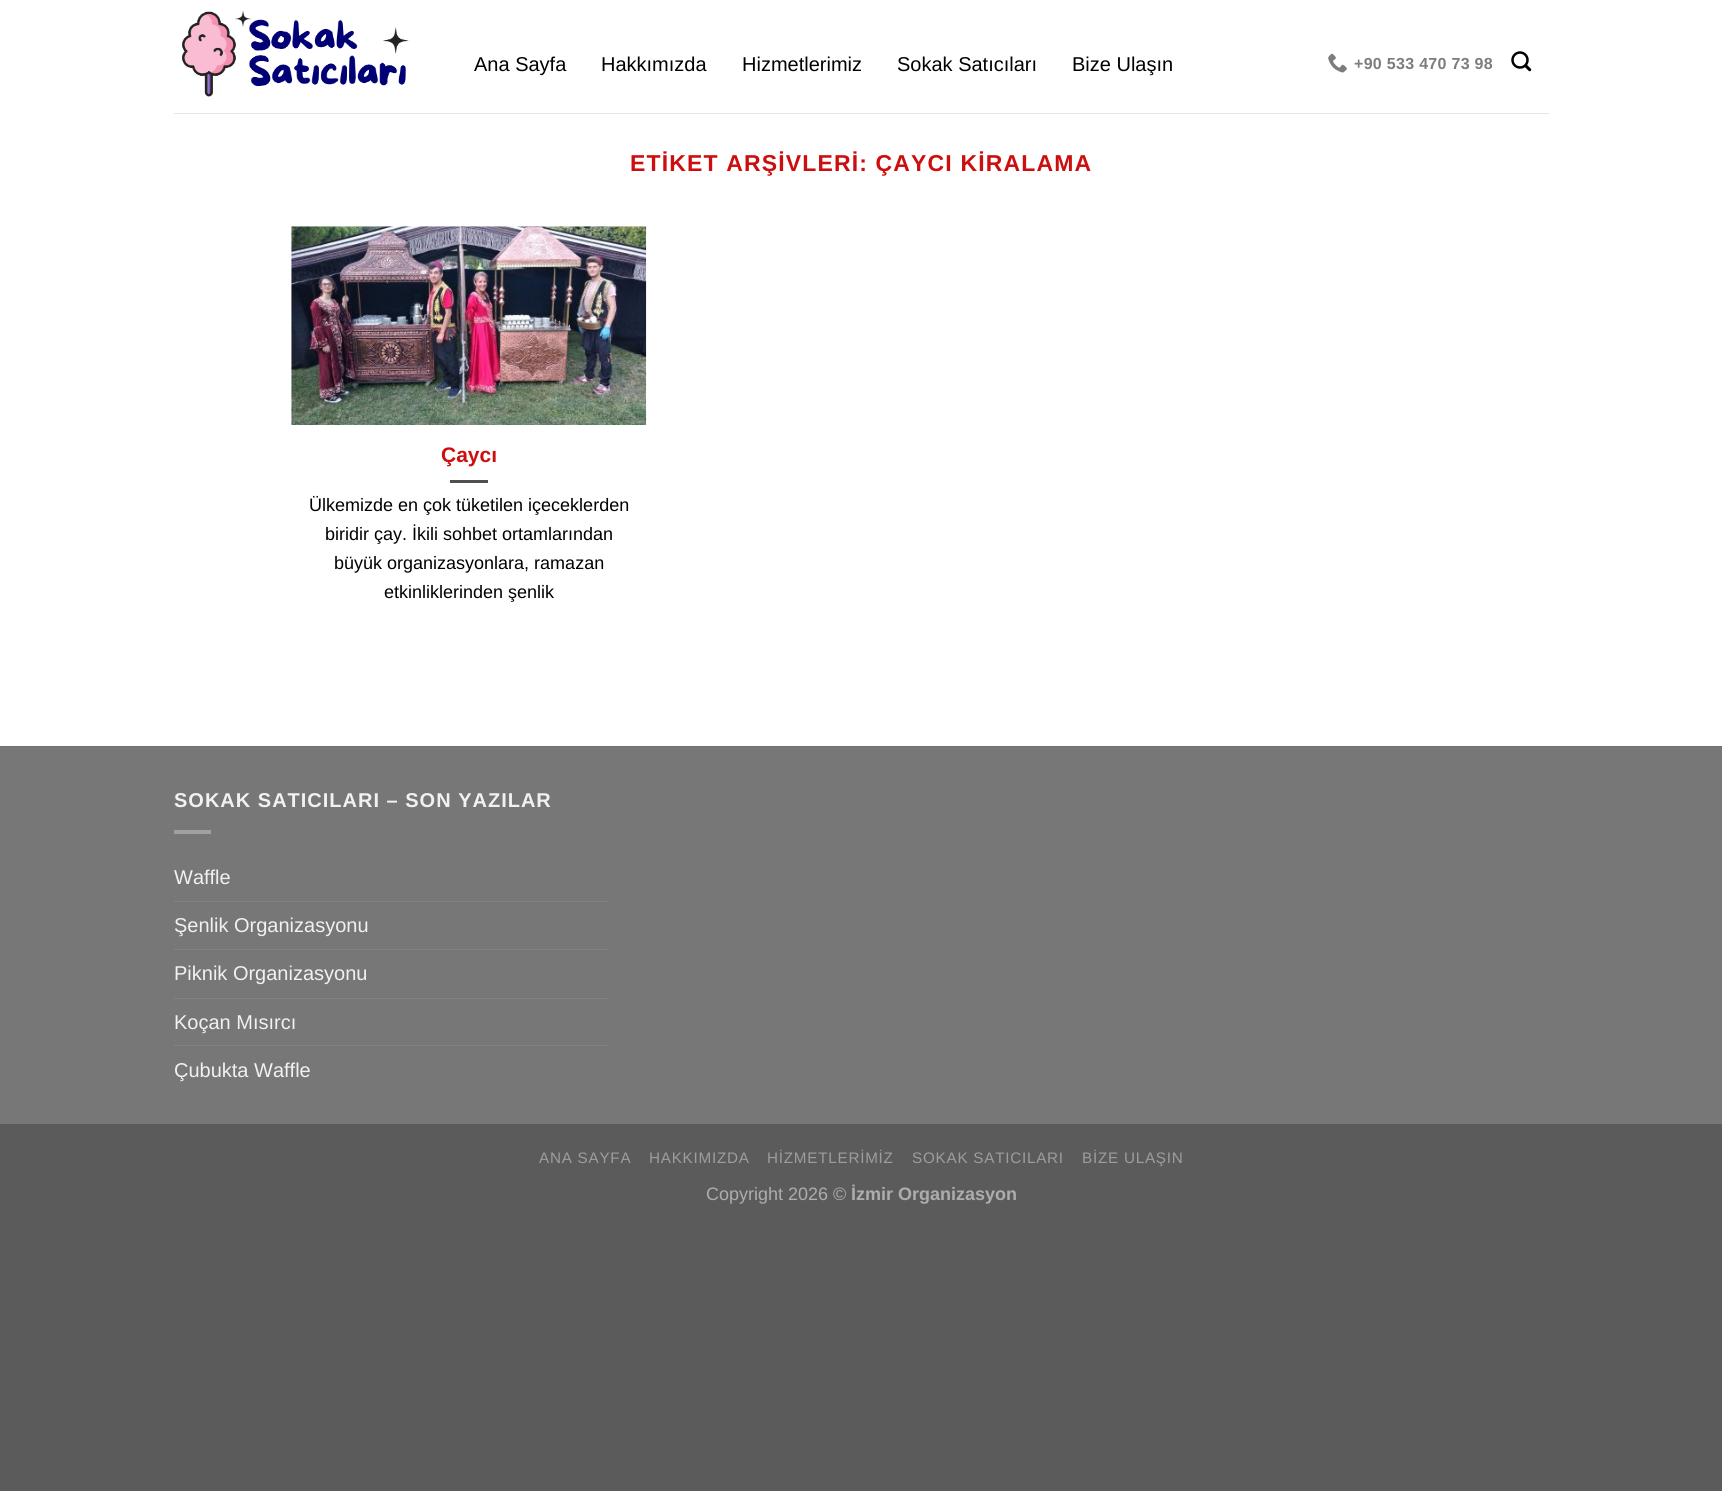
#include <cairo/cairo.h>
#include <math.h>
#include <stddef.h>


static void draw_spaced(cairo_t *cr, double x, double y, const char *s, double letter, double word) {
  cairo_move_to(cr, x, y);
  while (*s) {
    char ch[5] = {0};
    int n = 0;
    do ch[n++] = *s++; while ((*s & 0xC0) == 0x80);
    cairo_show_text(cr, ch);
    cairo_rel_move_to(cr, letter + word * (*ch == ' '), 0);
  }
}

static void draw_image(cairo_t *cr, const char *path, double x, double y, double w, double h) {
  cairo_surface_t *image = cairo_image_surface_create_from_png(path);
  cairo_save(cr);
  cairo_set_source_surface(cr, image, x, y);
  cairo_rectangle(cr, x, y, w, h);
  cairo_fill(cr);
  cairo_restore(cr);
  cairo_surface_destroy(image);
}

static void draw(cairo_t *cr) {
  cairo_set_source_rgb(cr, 91 / 255.0, 91 / 255.0, 91 / 255.0);
  cairo_paint(cr);
  cairo_set_source_rgb(cr, 1, 1, 1);
  cairo_rectangle(cr, 0, 0, 1722, 746);
  cairo_fill(cr);
  draw_image(cr, "images/1.png", 182, 10, 227, 87);
  draw_image(cr, "images/2.png", 1328, 53, 19, 20);
  draw_image(cr, "images/3.png", 1511, 51, 21, 21);
  cairo_set_source_rgb(cr, 230 / 255.0, 230 / 255.0, 230 / 255.0);
  cairo_rectangle(cr, 174, 113, 1375, 1);
  cairo_fill(cr);
  draw_image(cr, "images/4.png", 291, 226, 356, 199);
  cairo_set_source_rgb(cr, 79 / 255.0, 79 / 255.0, 79 / 255.0);
  cairo_rectangle(cr, 450, 480, 38, 3);
  cairo_fill(cr);
  cairo_set_source_rgb(cr, 119 / 255.0, 119 / 255.0, 119 / 255.0);
  cairo_rectangle(cr, 0, 747, 1722, 377);
  cairo_fill(cr);
  cairo_set_source_rgb(cr, 113 / 255.0, 113 / 255.0, 113 / 255.0);
  cairo_rectangle(cr, 0, 746, 1722, 1);
  cairo_fill(cr);
  cairo_set_source_rgb(cr, 160 / 255.0, 160 / 255.0, 160 / 255.0);
  cairo_rectangle(cr, 174, 830, 37, 4);
  cairo_fill(cr);
  cairo_set_source_rgb(cr, 130 / 255.0, 130 / 255.0, 130 / 255.0);
  cairo_rectangle(cr, 174, 901, 434, 1);
  cairo_fill(cr);
  cairo_rectangle(cr, 174, 949, 434, 1);
  cairo_fill(cr);
  cairo_rectangle(cr, 174, 998, 434, 1);
  cairo_fill(cr);
  cairo_rectangle(cr, 174, 1045, 434, 1);
  cairo_fill(cr);
  cairo_select_font_face(cr, "Liberation Sans", CAIRO_FONT_SLANT_NORMAL, CAIRO_FONT_WEIGHT_NORMAL);
  cairo_set_font_size(cr, 20);
  cairo_set_source_rgb(cr, 0, 0, 0);
  cairo_move_to(cr, 474, 71);
  cairo_show_text(cr, "Ana Sayfa");
  cairo_move_to(cr, 601, 71);
  cairo_show_text(cr, "Hakkımızda");
  cairo_move_to(cr, 742, 71);
  cairo_show_text(cr, "Hizmetlerimiz");
  cairo_move_to(cr, 897, 71);
  cairo_show_text(cr, "Sokak Satıcıları");
  cairo_move_to(cr, 1072, 71);
  cairo_show_text(cr, "Bize Ulaşın");
  cairo_select_font_face(cr, "Liberation Sans", CAIRO_FONT_SLANT_NORMAL, CAIRO_FONT_WEIGHT_BOLD);
  cairo_set_font_size(cr, 16);
  cairo_set_source_rgb(cr, 125 / 255.0, 125 / 255.0, 125 / 255.0);
  draw_spaced(cr, 1354, 69, "+90 533 470 73 98", 0.3, 0);
  cairo_set_font_size(cr, 23);
  cairo_set_source_rgb(cr, 205 / 255.0, 14 / 255.0, 14 / 255.0);
  draw_spaced(cr, 630, 171, "ETİKET ARŞİVLERİ: ÇAYCI KİRALAMA", 1.15, 0);
  cairo_set_font_size(cr, 21);
  cairo_move_to(cr, 441, 462);
  cairo_show_text(cr, "Çaycı");
  cairo_select_font_face(cr, "Liberation Sans", CAIRO_FONT_SLANT_NORMAL, CAIRO_FONT_WEIGHT_NORMAL);
  cairo_set_font_size(cr, 18);
  cairo_set_source_rgb(cr, 0, 0, 0);
  cairo_move_to(cr, 309, 511);
  cairo_show_text(cr, "Ülkemizde en çok tüketilen içeceklerden");
  cairo_move_to(cr, 325, 540);
  cairo_show_text(cr, "biridir çay. İkili sohbet ortamlarından");
  cairo_move_to(cr, 334, 569);
  cairo_show_text(cr, "büyük organizasyonlara, ramazan");
  cairo_move_to(cr, 384, 598);
  cairo_show_text(cr, "etkinliklerinden şenlik");
  cairo_select_font_face(cr, "Liberation Sans", CAIRO_FONT_SLANT_NORMAL, CAIRO_FONT_WEIGHT_BOLD);
  cairo_set_font_size(cr, 20);
  cairo_set_source_rgb(cr, 241 / 255.0, 241 / 255.0, 241 / 255.0);
  draw_spaced(cr, 174, 807, "SOKAK SATICILARI – SON YAZILAR", 1, 0);
  cairo_select_font_face(cr, "Liberation Sans", CAIRO_FONT_SLANT_NORMAL, CAIRO_FONT_WEIGHT_NORMAL);
  cairo_move_to(cr, 174, 884);
  cairo_show_text(cr, "Waffle");
  cairo_move_to(cr, 174, 932);
  cairo_show_text(cr, "Şenlik Organizasyonu");
  cairo_move_to(cr, 174, 980);
  cairo_show_text(cr, "Piknik Organizasyonu");
  cairo_move_to(cr, 174, 1029);
  cairo_show_text(cr, "Koçan Mısırcı");
  cairo_move_to(cr, 174, 1077);
  cairo_show_text(cr, "Çubukta Waffle");
  cairo_set_font_size(cr, 15.25);
  cairo_set_source_rgb(cr, 157 / 255.0, 157 / 255.0, 157 / 255.0);
  draw_spaced(cr, 539, 1163, "ANA SAYFA", 0.75, 0);
  draw_spaced(cr, 649, 1163, "HAKKIMIZDA", 0.75, 0);
  draw_spaced(cr, 767, 1163, "HİZMETLERİMİZ", 0.75, 0);
  draw_spaced(cr, 912, 1163, "SOKAK SATICILARI", 0.75, 0);
  draw_spaced(cr, 1082, 1163, "BİZE ULAŞIN", 0.75, 0);
  cairo_set_font_size(cr, 18);
  cairo_set_source_rgb(cr, 173 / 255.0, 173 / 255.0, 173 / 255.0);
  cairo_move_to(cr, 706, 1200);
  cairo_show_text(cr, "Copyright 2026 ©");
  cairo_select_font_face(cr, "Liberation Sans", CAIRO_FONT_SLANT_NORMAL, CAIRO_FONT_WEIGHT_BOLD);
  cairo_move_to(cr, 851, 1200);
  cairo_show_text(cr, "İzmir Organizasyon");
}

int main(void) {
  cairo_surface_t *surface = cairo_image_surface_create(CAIRO_FORMAT_RGB24, 1722, 1491);
  cairo_t *cr = cairo_create(surface);
  cairo_font_options_t *options = cairo_font_options_create();
  cairo_font_options_set_hint_metrics(options, CAIRO_HINT_METRICS_OFF);
  cairo_font_options_set_hint_style(options, CAIRO_HINT_STYLE_NONE);
  cairo_set_font_options(cr, options);
  cairo_set_miter_limit(cr, 4);
  draw(cr);
  cairo_surface_write_to_png(surface, "out.png");
  cairo_font_options_destroy(options);
  cairo_destroy(cr);
  cairo_surface_destroy(surface);
  return 0;
}
